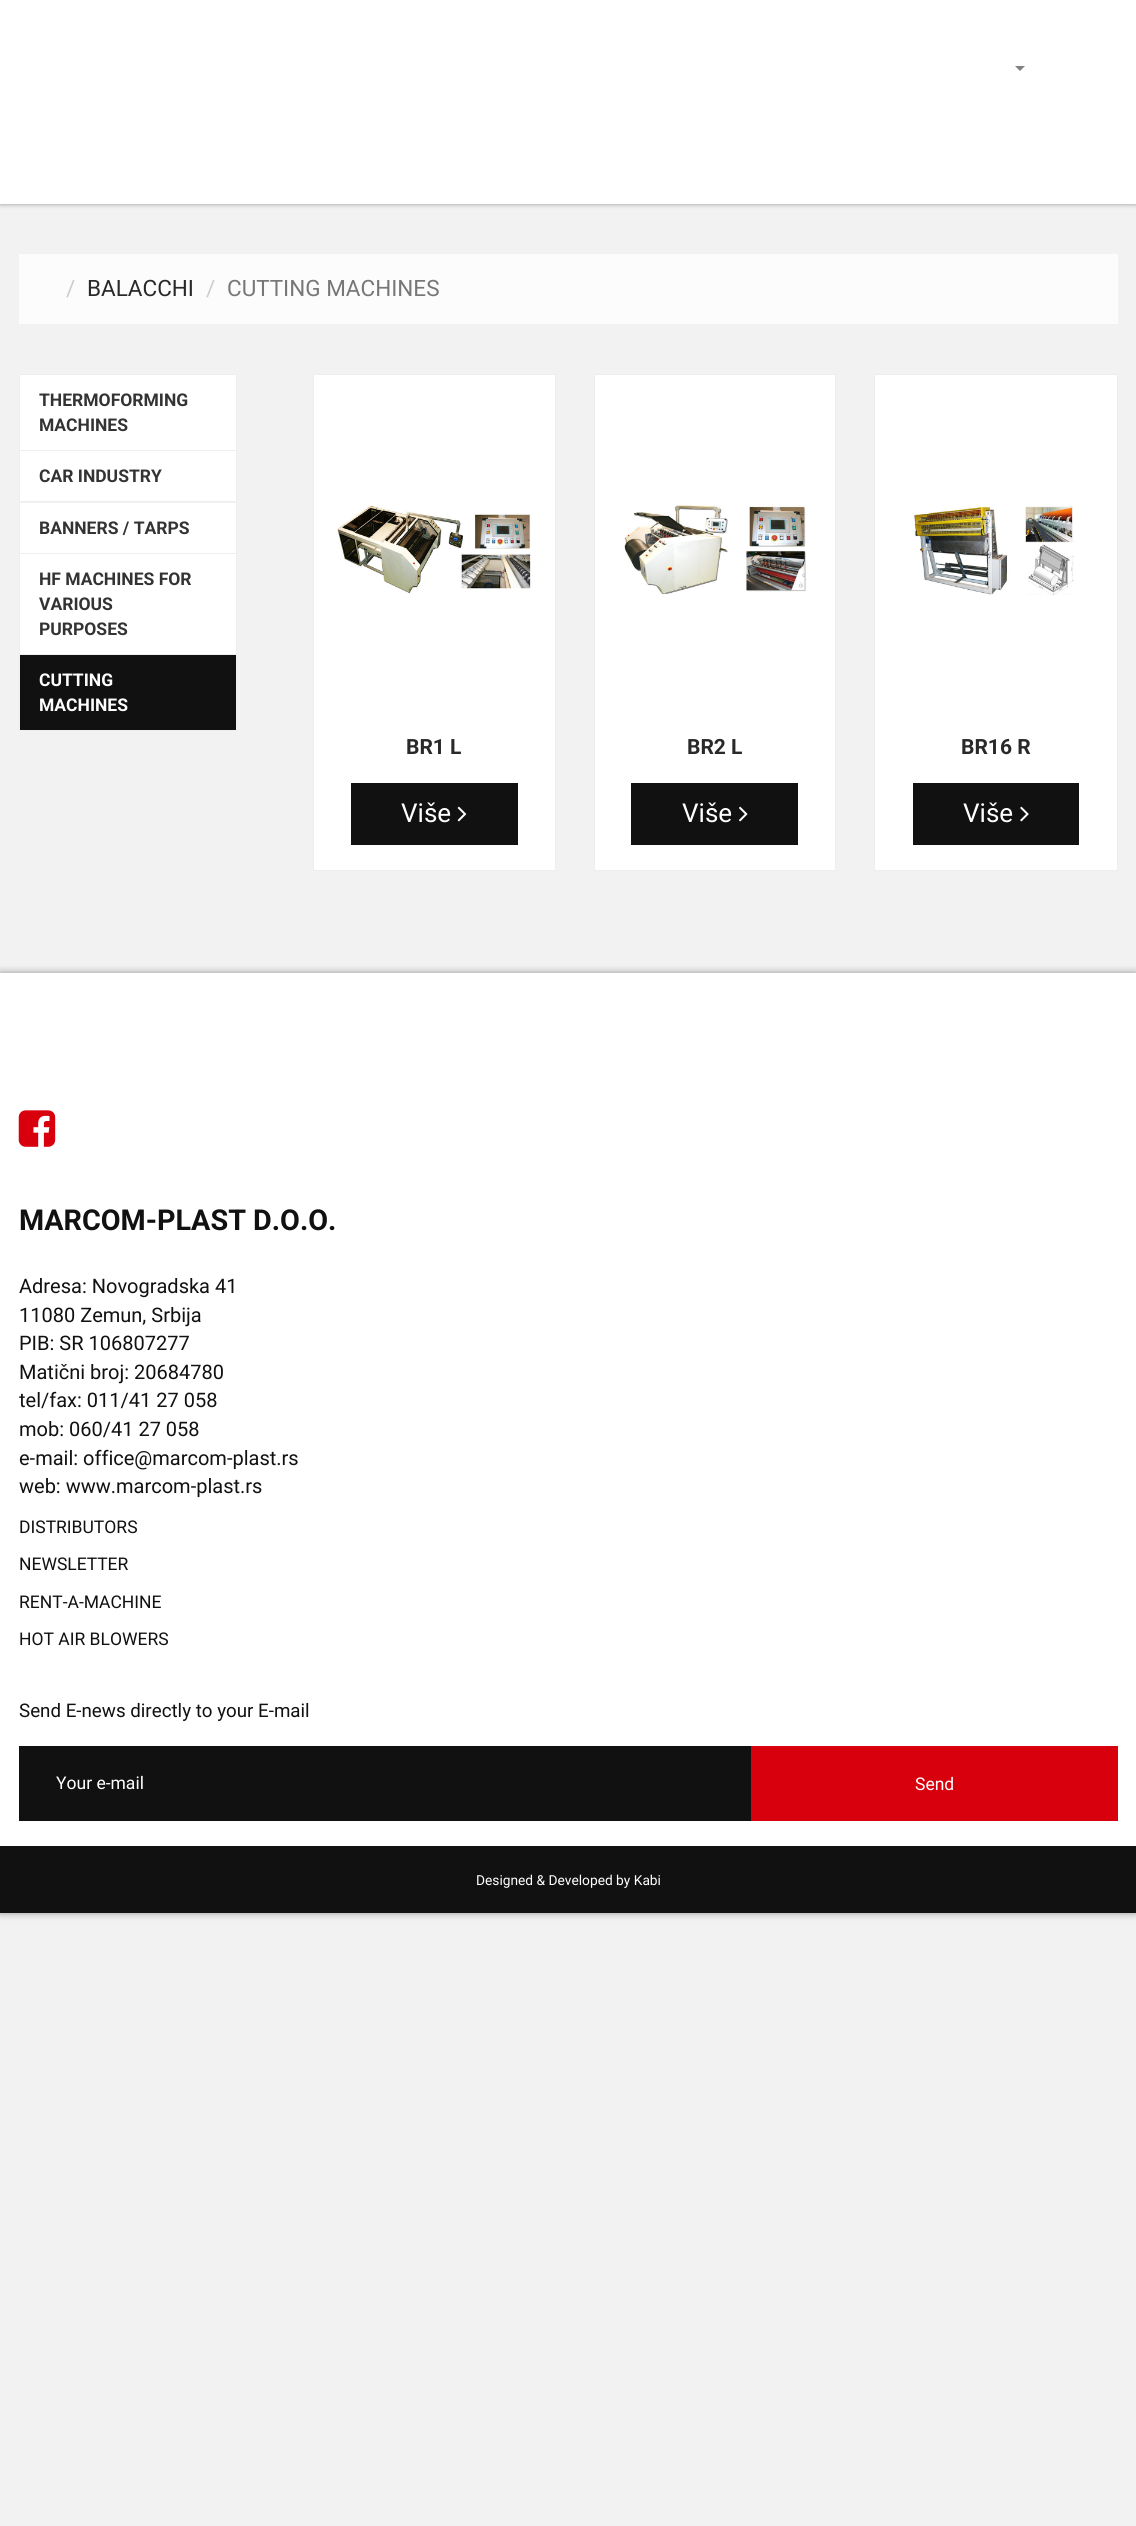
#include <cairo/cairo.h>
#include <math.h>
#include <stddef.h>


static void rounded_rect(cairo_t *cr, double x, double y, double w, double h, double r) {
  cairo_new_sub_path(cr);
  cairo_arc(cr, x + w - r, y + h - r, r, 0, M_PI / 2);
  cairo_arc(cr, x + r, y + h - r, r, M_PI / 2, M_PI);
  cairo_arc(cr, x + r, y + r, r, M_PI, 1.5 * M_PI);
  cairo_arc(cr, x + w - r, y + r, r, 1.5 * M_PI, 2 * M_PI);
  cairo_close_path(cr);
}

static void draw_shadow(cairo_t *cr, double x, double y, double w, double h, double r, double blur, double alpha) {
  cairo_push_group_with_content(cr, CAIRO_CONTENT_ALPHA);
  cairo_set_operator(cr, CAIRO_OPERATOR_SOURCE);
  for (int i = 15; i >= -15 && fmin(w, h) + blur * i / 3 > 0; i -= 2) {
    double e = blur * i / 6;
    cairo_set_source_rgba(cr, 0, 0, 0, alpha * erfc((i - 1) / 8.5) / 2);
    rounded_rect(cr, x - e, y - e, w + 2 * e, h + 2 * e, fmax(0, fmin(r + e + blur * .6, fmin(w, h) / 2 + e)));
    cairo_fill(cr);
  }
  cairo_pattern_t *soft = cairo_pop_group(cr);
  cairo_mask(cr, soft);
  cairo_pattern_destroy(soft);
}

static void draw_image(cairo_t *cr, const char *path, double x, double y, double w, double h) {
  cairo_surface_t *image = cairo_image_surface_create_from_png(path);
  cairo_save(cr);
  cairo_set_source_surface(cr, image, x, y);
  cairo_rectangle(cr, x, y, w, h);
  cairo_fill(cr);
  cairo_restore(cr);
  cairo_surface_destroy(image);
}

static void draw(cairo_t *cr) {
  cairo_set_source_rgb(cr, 242 / 255.0, 242 / 255.0, 242 / 255.0);
  cairo_paint(cr);
  cairo_set_source_rgb(cr, 0, 0, 0);
  draw_shadow(cr, 0, 0, 1136, 204, 0, 2.5, 0.4);
  cairo_set_source_rgb(cr, 1, 1, 1);
  cairo_rectangle(cr, 0, 0, 1136, 204);
  cairo_fill(cr);
  cairo_set_source_rgb(cr, 128 / 255.0, 128 / 255.0, 128 / 255.0);
  cairo_new_path(cr);
  cairo_move_to(cr, 1015, 66);
  cairo_line_to(cr, 1025, 66);
  cairo_line_to(cr, 1020, 71);
  cairo_close_path(cr);
  cairo_fill(cr);
  cairo_set_source_rgb(cr, 252 / 255.0, 252 / 255.0, 252 / 255.0);
  cairo_rectangle(cr, 19, 254, 1099, 70);
  cairo_fill(cr);
  cairo_set_source_rgb(cr, 238 / 255.0, 238 / 255.0, 238 / 255.0);
  cairo_rectangle(cr, 19, 374, 219, 1);
  cairo_fill(cr);
  cairo_rectangle(cr, 236, 374, 1, 357);
  cairo_fill(cr);
  cairo_rectangle(cr, 19, 374, 1, 357);
  cairo_fill(cr);
  cairo_rectangle(cr, 20, 450, 216, 1);
  cairo_fill(cr);
  cairo_set_source_rgb(cr, 1, 1, 1);
  cairo_rectangle(cr, 20, 375, 216, 75);
  cairo_fill(cr);
  cairo_set_source_rgb(cr, 238 / 255.0, 238 / 255.0, 238 / 255.0);
  cairo_rectangle(cr, 20, 501, 216, 1);
  cairo_fill(cr);
  cairo_set_source_rgb(cr, 1, 1, 1);
  cairo_rectangle(cr, 20, 451, 216, 50);
  cairo_fill(cr);
  cairo_set_source_rgb(cr, 238 / 255.0, 238 / 255.0, 238 / 255.0);
  cairo_rectangle(cr, 20, 553, 216, 1);
  cairo_fill(cr);
  cairo_set_source_rgb(cr, 1, 1, 1);
  cairo_rectangle(cr, 20, 503, 216, 50);
  cairo_fill(cr);
  cairo_set_source_rgb(cr, 238 / 255.0, 238 / 255.0, 238 / 255.0);
  cairo_rectangle(cr, 20, 654, 216, 1);
  cairo_fill(cr);
  cairo_set_source_rgb(cr, 1, 1, 1);
  cairo_rectangle(cr, 20, 554, 216, 100);
  cairo_fill(cr);
  cairo_set_source_rgb(cr, 238 / 255.0, 238 / 255.0, 238 / 255.0);
  cairo_rectangle(cr, 20, 730, 216, 1);
  cairo_fill(cr);
  cairo_set_source_rgb(cr, 17 / 255.0, 17 / 255.0, 17 / 255.0);
  cairo_rectangle(cr, 20, 655, 216, 75);
  cairo_fill(cr);
  cairo_set_source_rgb(cr, 1, 1, 1);
  cairo_rectangle(cr, 313.5, 374.5, 242, 496);
  cairo_fill_preserve(cr);
  cairo_set_source_rgb(cr, 238 / 255.0, 238 / 255.0, 238 / 255.0);
  cairo_set_line_width(cr, 1);
  cairo_stroke(cr);
  draw_image(cr, "images/1.png", 337, 505, 194, 89);
  cairo_set_source_rgb(cr, 17 / 255.0, 17 / 255.0, 17 / 255.0);
  cairo_rectangle(cr, 351, 783, 167, 62);
  cairo_fill(cr);
  draw_image(cr, "images/2.png", 457, 806, 10, 16);
  cairo_set_source_rgb(cr, 1, 1, 1);
  cairo_rectangle(cr, 594.5, 374.5, 241, 496);
  cairo_fill_preserve(cr);
  cairo_set_source_rgb(cr, 238 / 255.0, 238 / 255.0, 238 / 255.0);
  cairo_stroke(cr);
  draw_image(cr, "images/3.png", 624, 505, 182, 90);
  cairo_set_source_rgb(cr, 17 / 255.0, 17 / 255.0, 17 / 255.0);
  cairo_rectangle(cr, 631, 783, 167, 62);
  cairo_fill(cr);
  draw_image(cr, "images/4.png", 739, 806, 9, 16);
  cairo_set_source_rgb(cr, 1, 1, 1);
  cairo_rectangle(cr, 874.5, 374.5, 243, 496);
  cairo_fill_preserve(cr);
  cairo_set_source_rgb(cr, 238 / 255.0, 238 / 255.0, 238 / 255.0);
  cairo_stroke(cr);
  draw_image(cr, "images/5.png", 913, 506, 161, 89);
  cairo_set_source_rgb(cr, 17 / 255.0, 17 / 255.0, 17 / 255.0);
  cairo_rectangle(cr, 913, 783, 166, 62);
  cairo_fill(cr);
  draw_image(cr, "images/6.png", 1020, 806, 9, 16);
  cairo_set_source_rgb(cr, 0, 0, 0);
  draw_shadow(cr, 0, 973, 1136, 940, 0, 4, 0.4);
  cairo_set_source_rgb(cr, 1, 1, 1);
  cairo_rectangle(cr, 0, 973, 1136, 873);
  cairo_fill(cr);
  draw_image(cr, "images/7.png", 18, 1110, 38, 37);
  cairo_set_source_rgb(cr, 17 / 255.0, 17 / 255.0, 17 / 255.0);
  cairo_rectangle(cr, 19, 1746, 732, 75);
  cairo_fill(cr);
  cairo_set_source_rgb(cr, 217 / 255.0, 0, 13 / 255.0);
  cairo_rectangle(cr, 751, 1746, 367, 75);
  cairo_fill(cr);
  cairo_set_source_rgb(cr, 17 / 255.0, 17 / 255.0, 17 / 255.0);
  cairo_rectangle(cr, 0, 1846, 1136, 67);
  cairo_fill(cr);
  cairo_select_font_face(cr, "Roboto", CAIRO_FONT_SLANT_NORMAL, CAIRO_FONT_WEIGHT_NORMAL);
  cairo_set_font_size(cr, 22.5);
  cairo_set_source_rgb(cr, 204 / 255.0, 204 / 255.0, 204 / 255.0);
  cairo_move_to(cr, 66, 296);
  cairo_show_text(cr, "/");
  cairo_set_source_rgb(cr, 41 / 255.0, 41 / 255.0, 41 / 255.0);
  cairo_move_to(cr, 87, 296);
  cairo_show_text(cr, "BALACCHI");
  cairo_set_source_rgb(cr, 204 / 255.0, 204 / 255.0, 204 / 255.0);
  cairo_move_to(cr, 206, 296);
  cairo_show_text(cr, "/");
  cairo_set_source_rgb(cr, 119 / 255.0, 119 / 255.0, 119 / 255.0);
  cairo_move_to(cr, 227, 296);
  cairo_show_text(cr, "CUTTING MACHINES");
  cairo_select_font_face(cr, "Roboto", CAIRO_FONT_SLANT_NORMAL, CAIRO_FONT_WEIGHT_BOLD);
  cairo_set_font_size(cr, 17.5);
  cairo_set_source_rgb(cr, 51 / 255.0, 51 / 255.0, 51 / 255.0);
  cairo_move_to(cr, 39, 406);
  cairo_show_text(cr, "THERMOFORMING");
  cairo_move_to(cr, 39, 431);
  cairo_show_text(cr, "MACHINES");
  cairo_move_to(cr, 39, 482);
  cairo_show_text(cr, "CAR INDUSTRY");
  cairo_move_to(cr, 39, 534);
  cairo_show_text(cr, "BANNERS / TARPS");
  cairo_move_to(cr, 39, 585);
  cairo_show_text(cr, "HF MACHINES FOR");
  cairo_move_to(cr, 39, 610);
  cairo_show_text(cr, "VARIOUS");
  cairo_move_to(cr, 39, 635);
  cairo_show_text(cr, "PURPOSES");
  cairo_set_source_rgb(cr, 1, 1, 1);
  cairo_move_to(cr, 39, 686);
  cairo_show_text(cr, "CUTTING");
  cairo_move_to(cr, 39, 711);
  cairo_show_text(cr, "MACHINES");
  cairo_set_font_size(cr, 21);
  cairo_set_source_rgb(cr, 41 / 255.0, 41 / 255.0, 41 / 255.0);
  cairo_move_to(cr, 406, 754);
  cairo_show_text(cr, "BR1 L");
  cairo_select_font_face(cr, "Roboto", CAIRO_FONT_SLANT_NORMAL, CAIRO_FONT_WEIGHT_NORMAL);
  cairo_set_font_size(cr, 26);
  cairo_set_source_rgb(cr, 1, 1, 1);
  cairo_move_to(cr, 401, 822);
  cairo_show_text(cr, "Više");
  cairo_select_font_face(cr, "Roboto", CAIRO_FONT_SLANT_NORMAL, CAIRO_FONT_WEIGHT_BOLD);
  cairo_set_font_size(cr, 21);
  cairo_set_source_rgb(cr, 41 / 255.0, 41 / 255.0, 41 / 255.0);
  cairo_move_to(cr, 687, 754);
  cairo_show_text(cr, "BR2 L");
  cairo_select_font_face(cr, "Roboto", CAIRO_FONT_SLANT_NORMAL, CAIRO_FONT_WEIGHT_NORMAL);
  cairo_set_font_size(cr, 26);
  cairo_set_source_rgb(cr, 1, 1, 1);
  cairo_move_to(cr, 682, 822);
  cairo_show_text(cr, "Više");
  cairo_select_font_face(cr, "Roboto", CAIRO_FONT_SLANT_NORMAL, CAIRO_FONT_WEIGHT_BOLD);
  cairo_set_font_size(cr, 21);
  cairo_set_source_rgb(cr, 41 / 255.0, 41 / 255.0, 41 / 255.0);
  cairo_move_to(cr, 961, 754);
  cairo_show_text(cr, "BR16 R");
  cairo_select_font_face(cr, "Roboto", CAIRO_FONT_SLANT_NORMAL, CAIRO_FONT_WEIGHT_NORMAL);
  cairo_set_font_size(cr, 26);
  cairo_set_source_rgb(cr, 1, 1, 1);
  cairo_move_to(cr, 963, 822);
  cairo_show_text(cr, "Više");
  cairo_select_font_face(cr, "Roboto", CAIRO_FONT_SLANT_NORMAL, CAIRO_FONT_WEIGHT_BOLD);
  cairo_set_font_size(cr, 28.75);
  cairo_set_source_rgb(cr, 17 / 255.0, 17 / 255.0, 17 / 255.0);
  cairo_move_to(cr, 19, 1230);
  cairo_show_text(cr, "MARCOM-PLAST D.O.O.");
  cairo_select_font_face(cr, "Roboto", CAIRO_FONT_SLANT_NORMAL, CAIRO_FONT_WEIGHT_NORMAL);
  cairo_set_font_size(cr, 20);
  cairo_move_to(cr, 19, 1293);
  cairo_show_text(cr, "Adresa: Novogradska 41");
  cairo_move_to(cr, 19, 1322);
  cairo_show_text(cr, "11080 Zemun, Srbija");
  cairo_move_to(cr, 19, 1350);
  cairo_show_text(cr, "PIB: SR 106807277");
  cairo_move_to(cr, 19, 1379);
  cairo_show_text(cr, "Matični broj: 20684780");
  cairo_move_to(cr, 19, 1407);
  cairo_show_text(cr, "tel/fax: 011/41 27 058");
  cairo_move_to(cr, 19, 1436);
  cairo_show_text(cr, "mob: 060/41 27 058");
  cairo_move_to(cr, 19, 1465);
  cairo_show_text(cr, "e-mail: office@marcom-plast.rs");
  cairo_move_to(cr, 19, 1493);
  cairo_show_text(cr, "web: www.marcom-plast.rs");
  cairo_set_font_size(cr, 17.5);
  cairo_move_to(cr, 19, 1533);
  cairo_show_text(cr, "DISTRIBUTORS");
  cairo_move_to(cr, 19, 1570);
  cairo_show_text(cr, "NEWSLETTER");
  cairo_move_to(cr, 19, 1608);
  cairo_show_text(cr, "RENT-A-MACHINE");
  cairo_move_to(cr, 19, 1645);
  cairo_show_text(cr, "HOT AIR BLOWERS");
  cairo_set_font_size(cr, 18.75);
  cairo_move_to(cr, 19, 1717);
  cairo_show_text(cr, "Send E-news directly to your E-mail");
  cairo_set_font_size(cr, 17.5);
  cairo_set_source_rgb(cr, 1, 1, 1);
  cairo_move_to(cr, 56, 1789);
  cairo_show_text(cr, "Your e-mail");
  cairo_move_to(cr, 915, 1790);
  cairo_show_text(cr, "Send");
  cairo_set_font_size(cr, 13.75);
  cairo_move_to(cr, 476, 1885);
  cairo_show_text(cr, "Designed & Developed by Kabi");
}

int main(void) {
  cairo_surface_t *surface = cairo_image_surface_create(CAIRO_FORMAT_RGB24, 1136, 2526);
  cairo_t *cr = cairo_create(surface);
  cairo_font_options_t *options = cairo_font_options_create();
  cairo_font_options_set_hint_metrics(options, CAIRO_HINT_METRICS_OFF);
  cairo_font_options_set_hint_style(options, CAIRO_HINT_STYLE_NONE);
  cairo_set_font_options(cr, options);
  cairo_set_miter_limit(cr, 4);
  draw(cr);
  cairo_surface_write_to_png(surface, "out.png");
  cairo_font_options_destroy(options);
  cairo_destroy(cr);
  cairo_surface_destroy(surface);
  return 0;
}
